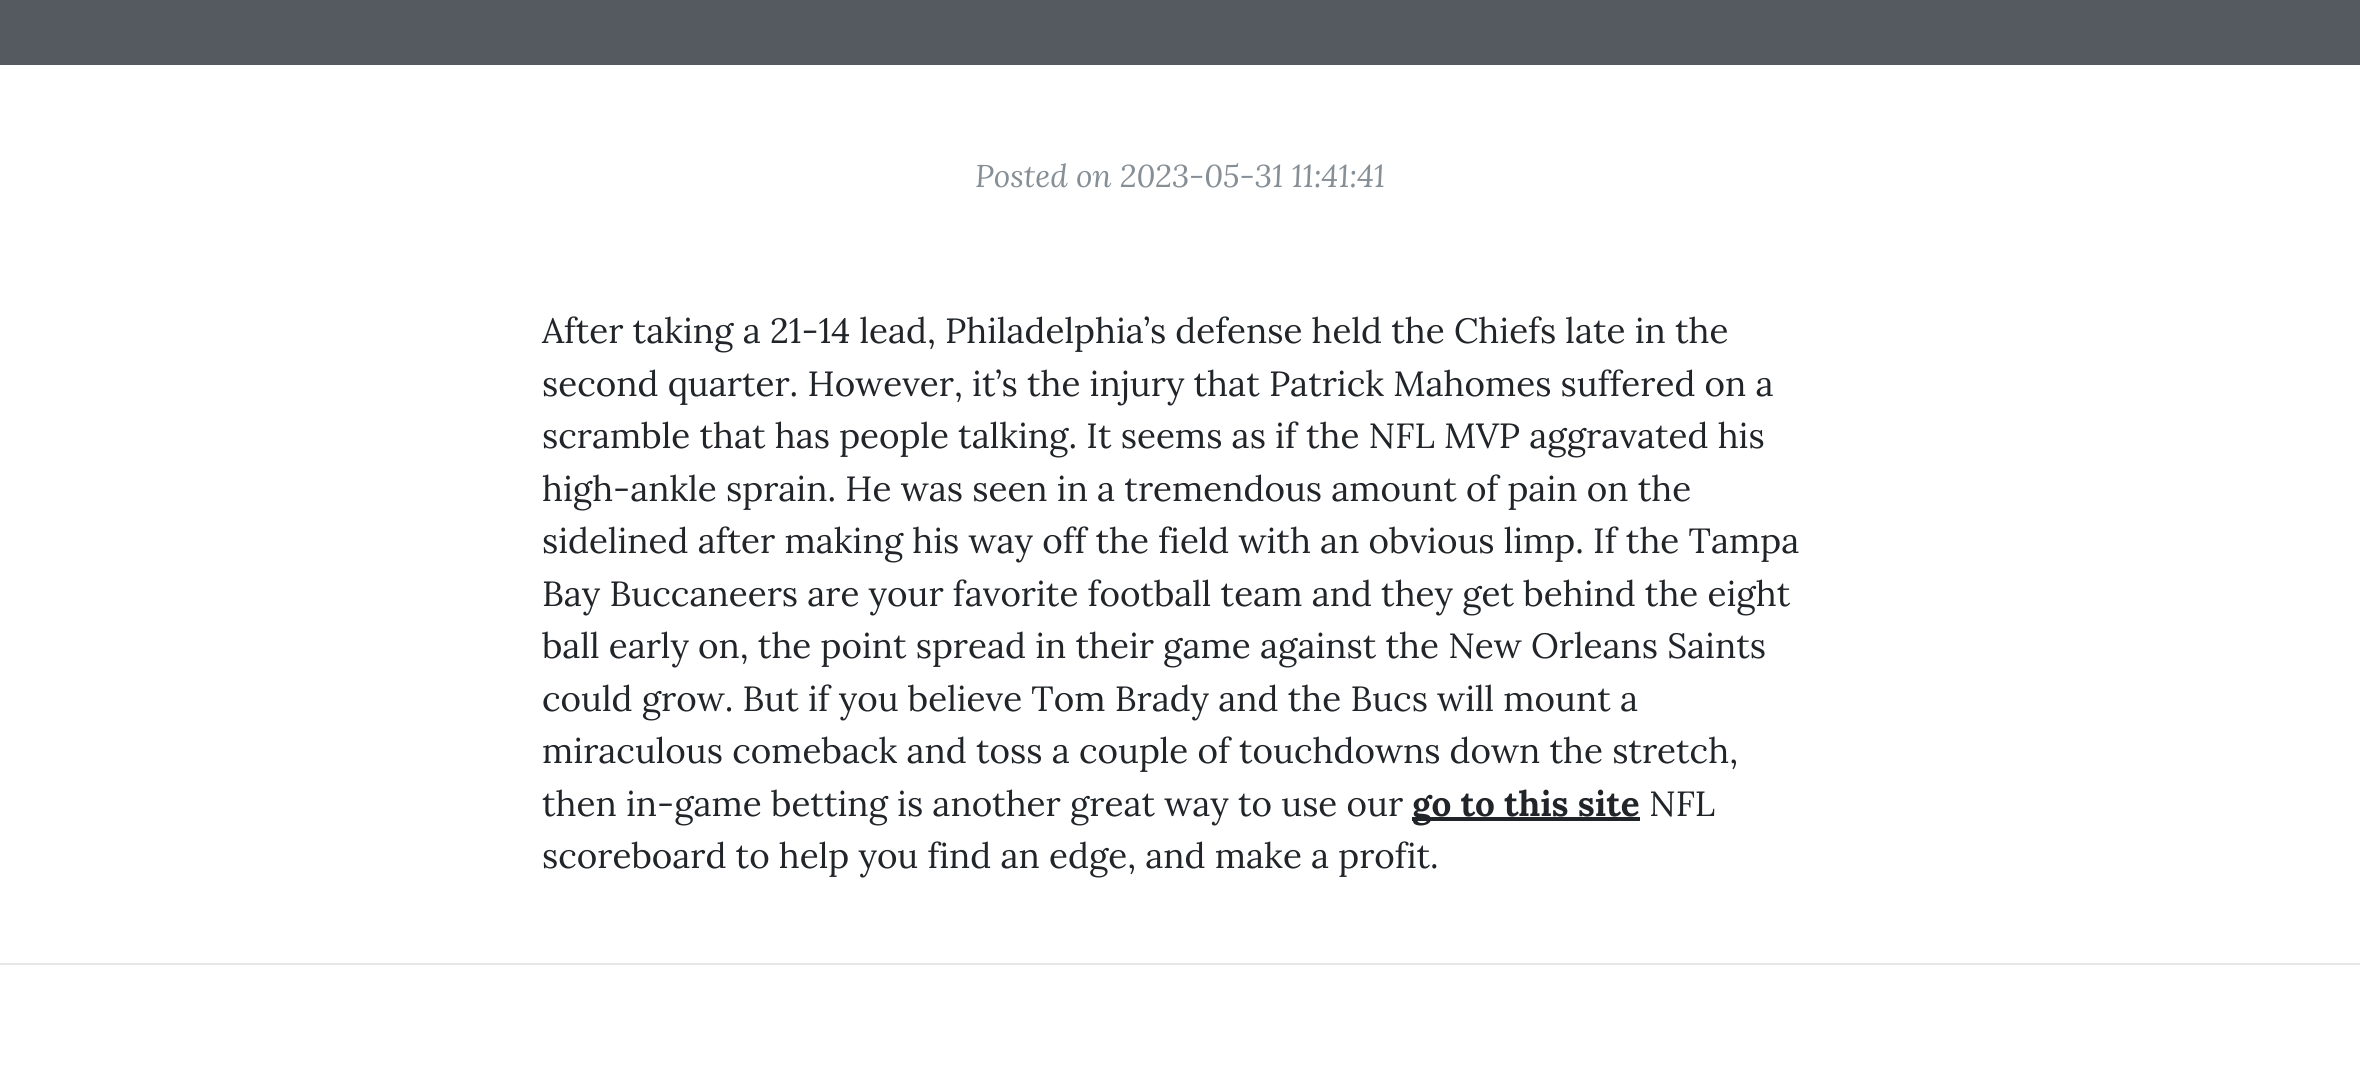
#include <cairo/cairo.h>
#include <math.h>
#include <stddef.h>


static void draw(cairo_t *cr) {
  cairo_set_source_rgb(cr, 1, 1, 1);
  cairo_paint(cr);
  cairo_set_source_rgb(cr, 84 / 255.0, 90 / 255.0, 96 / 255.0);
  cairo_rectangle(cr, 0, 0, 2360, 65);
  cairo_fill(cr);
  cairo_set_source_rgb(cr, 33 / 255.0, 37 / 255.0, 41 / 255.0);
  cairo_rectangle(cr, 1412, 817, 228, 4);
  cairo_fill(cr);
  cairo_set_source_rgb(cr, 230 / 255.0, 230 / 255.0, 230 / 255.0);
  cairo_rectangle(cr, 0, 963, 2360, 2);
  cairo_fill(cr);
  cairo_select_font_face(cr, "Lora", CAIRO_FONT_SLANT_ITALIC, CAIRO_FONT_WEIGHT_NORMAL);
  cairo_set_font_size(cr, 31.5);
  cairo_set_source_rgb(cr, 134 / 255.0, 142 / 255.0, 150 / 255.0);
  cairo_move_to(cr, 975, 187);
  cairo_show_text(cr, "Posted on 2023-05-31 11:41:41");
  cairo_select_font_face(cr, "Lora", CAIRO_FONT_SLANT_NORMAL, CAIRO_FONT_WEIGHT_NORMAL);
  cairo_set_font_size(cr, 35);
  cairo_set_source_rgb(cr, 33 / 255.0, 37 / 255.0, 41 / 255.0);
  cairo_move_to(cr, 542, 343);
  cairo_show_text(cr, "After taking a 21-14 lead, Philadelphia’s defense held the Chiefs late in the");
  cairo_move_to(cr, 542, 396);
  cairo_show_text(cr, "second quarter. However, it’s the injury that Patrick Mahomes suffered on a");
  cairo_move_to(cr, 542, 448);
  cairo_show_text(cr, "scramble that has people talking. It seems as if the NFL MVP aggravated his");
  cairo_move_to(cr, 542, 501);
  cairo_show_text(cr, "high-ankle sprain. He was seen in a tremendous amount of pain on the");
  cairo_move_to(cr, 542, 553);
  cairo_show_text(cr, "sidelined after making his way off the field with an obvious limp. If the Tampa");
  cairo_move_to(cr, 542, 606);
  cairo_show_text(cr, "Bay Buccaneers are your favorite football team and they get behind the eight");
  cairo_move_to(cr, 542, 658);
  cairo_show_text(cr, "ball early on, the point spread in their game against the New Orleans Saints");
  cairo_move_to(cr, 542, 711);
  cairo_show_text(cr, "could grow. But if you believe Tom Brady and the Bucs will mount a");
  cairo_move_to(cr, 542, 763);
  cairo_show_text(cr, "miraculous comeback and toss a couple of touchdowns down the stretch,");
  cairo_move_to(cr, 542, 816);
  cairo_show_text(cr, "then in-game betting is another great way to use our");
  cairo_select_font_face(cr, "Lora", CAIRO_FONT_SLANT_NORMAL, CAIRO_FONT_WEIGHT_BOLD);
  cairo_move_to(cr, 1412, 816);
  cairo_show_text(cr, "go to this site");
  cairo_select_font_face(cr, "Lora", CAIRO_FONT_SLANT_NORMAL, CAIRO_FONT_WEIGHT_NORMAL);
  cairo_move_to(cr, 1649, 816);
  cairo_show_text(cr, "NFL");
  cairo_move_to(cr, 542, 868);
  cairo_show_text(cr, "scoreboard to help you find an edge, and make a profit.");
}

int main(void) {
  cairo_surface_t *surface = cairo_image_surface_create(CAIRO_FORMAT_RGB24, 2360, 1078);
  cairo_t *cr = cairo_create(surface);
  cairo_font_options_t *options = cairo_font_options_create();
  cairo_font_options_set_hint_metrics(options, CAIRO_HINT_METRICS_OFF);
  cairo_font_options_set_hint_style(options, CAIRO_HINT_STYLE_NONE);
  cairo_set_font_options(cr, options);
  cairo_set_miter_limit(cr, 4);
  draw(cr);
  cairo_surface_write_to_png(surface, "out.png");
  cairo_font_options_destroy(options);
  cairo_destroy(cr);
  cairo_surface_destroy(surface);
  return 0;
}
